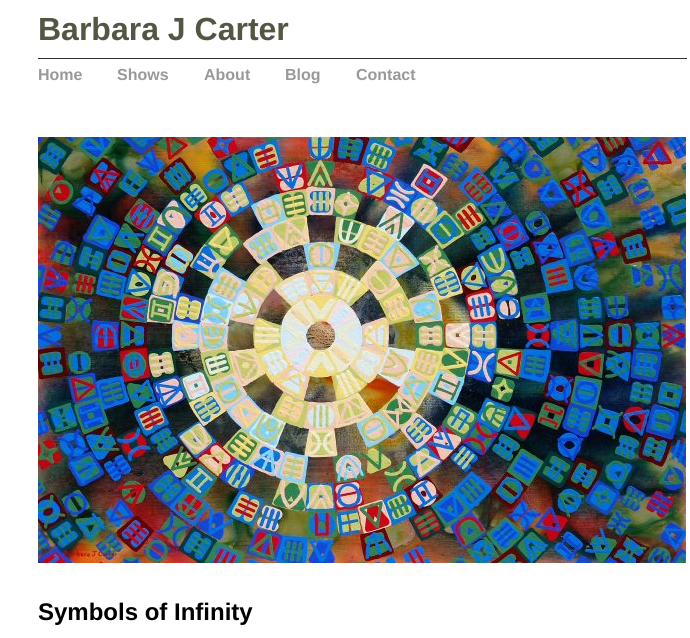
#include <cairo/cairo.h>
#include <math.h>
#include <stddef.h>


static void draw_image(cairo_t *cr, const char *path, double x, double y, double w, double h) {
  cairo_surface_t *image = cairo_image_surface_create_from_png(path);
  cairo_save(cr);
  cairo_set_source_surface(cr, image, x, y);
  cairo_rectangle(cr, x, y, w, h);
  cairo_fill(cr);
  cairo_restore(cr);
  cairo_surface_destroy(image);
}

static void draw(cairo_t *cr) {
  cairo_set_source_rgb(cr, 1, 1, 1);
  cairo_paint(cr);
  cairo_set_source_rgb(cr, 51 / 255.0, 51 / 255.0, 51 / 255.0);
  cairo_rectangle(cr, 38, 58, 649, 1);
  cairo_fill(cr);
  draw_image(cr, "images/1.png", 38, 137, 648, 426);
  cairo_select_font_face(cr, "Liberation Sans", CAIRO_FONT_SLANT_NORMAL, CAIRO_FONT_WEIGHT_BOLD);
  cairo_set_font_size(cr, 32);
  cairo_set_source_rgb(cr, 85 / 255.0, 85 / 255.0, 68 / 255.0);
  cairo_move_to(cr, 38, 40);
  cairo_show_text(cr, "Barbara J Carter");
  cairo_set_font_size(cr, 16);
  cairo_set_source_rgb(cr, 153 / 255.0, 153 / 255.0, 153 / 255.0);
  cairo_move_to(cr, 38, 80);
  cairo_show_text(cr, "Home");
  cairo_move_to(cr, 117, 80);
  cairo_show_text(cr, "Shows");
  cairo_move_to(cr, 204, 80);
  cairo_show_text(cr, "About");
  cairo_move_to(cr, 285, 80);
  cairo_show_text(cr, "Blog");
  cairo_move_to(cr, 356, 80);
  cairo_show_text(cr, "Contact");
  cairo_set_font_size(cr, 24);
  cairo_set_source_rgb(cr, 0, 0, 0);
  cairo_move_to(cr, 38, 620);
  cairo_show_text(cr, "Symbols of Infinity");
}

int main(void) {
  cairo_surface_t *surface = cairo_image_surface_create(CAIRO_FORMAT_RGB24, 690, 638);
  cairo_t *cr = cairo_create(surface);
  cairo_font_options_t *options = cairo_font_options_create();
  cairo_font_options_set_hint_metrics(options, CAIRO_HINT_METRICS_OFF);
  cairo_font_options_set_hint_style(options, CAIRO_HINT_STYLE_NONE);
  cairo_set_font_options(cr, options);
  cairo_set_miter_limit(cr, 4);
  draw(cr);
  cairo_surface_write_to_png(surface, "out.png");
  cairo_font_options_destroy(options);
  cairo_destroy(cr);
  cairo_surface_destroy(surface);
  return 0;
}
